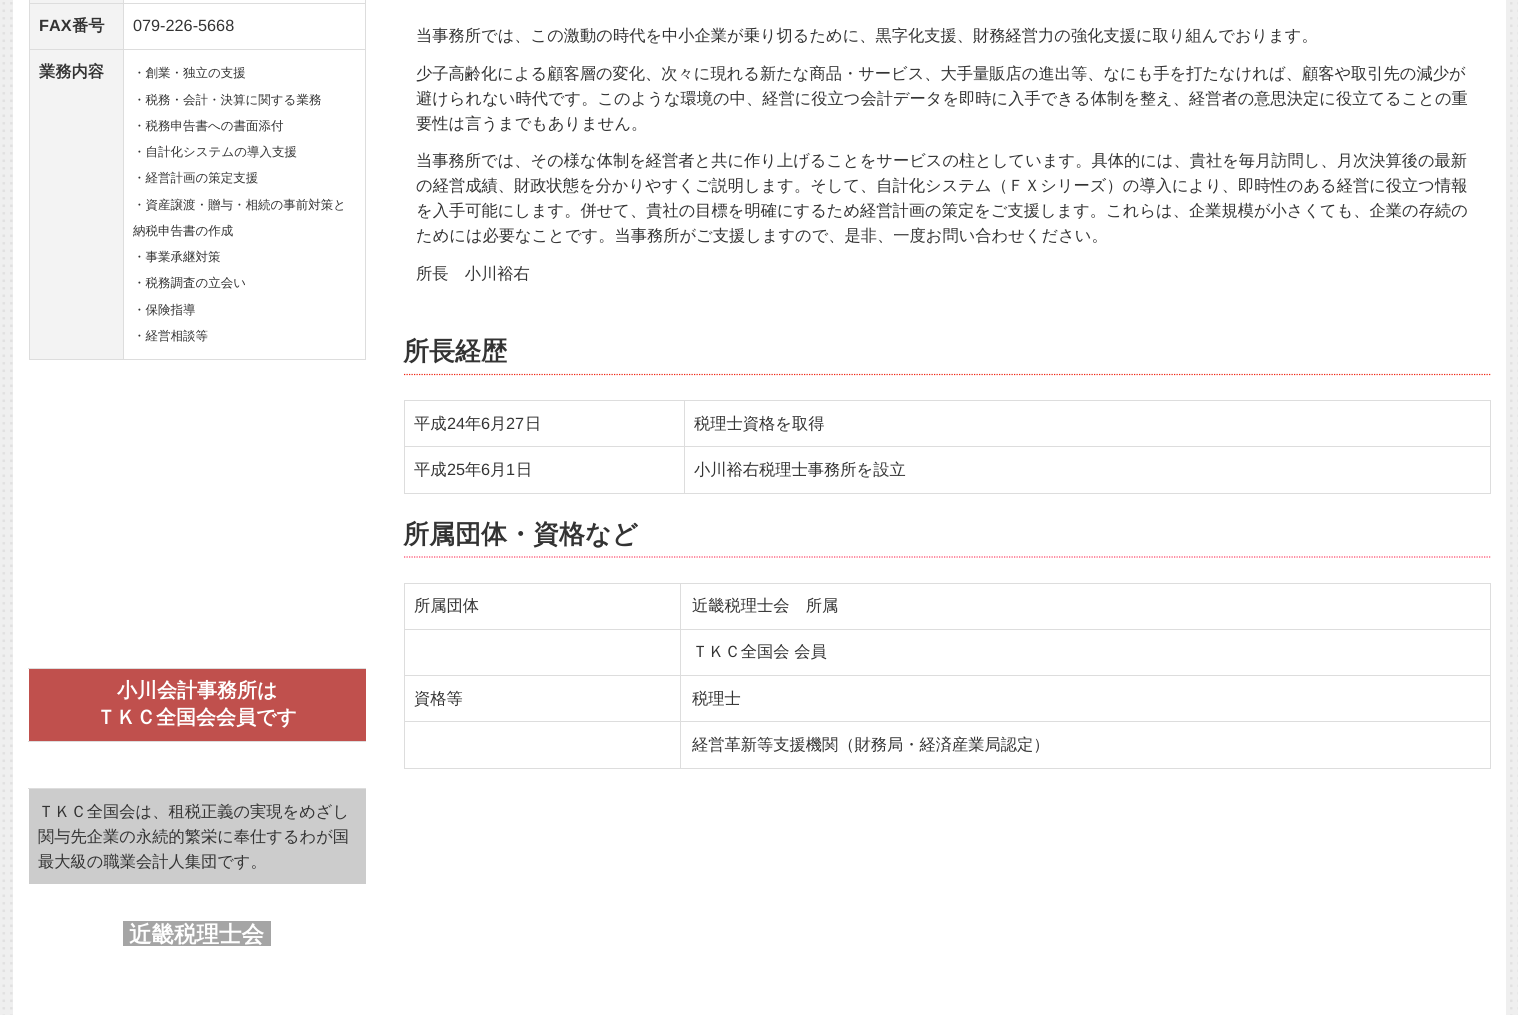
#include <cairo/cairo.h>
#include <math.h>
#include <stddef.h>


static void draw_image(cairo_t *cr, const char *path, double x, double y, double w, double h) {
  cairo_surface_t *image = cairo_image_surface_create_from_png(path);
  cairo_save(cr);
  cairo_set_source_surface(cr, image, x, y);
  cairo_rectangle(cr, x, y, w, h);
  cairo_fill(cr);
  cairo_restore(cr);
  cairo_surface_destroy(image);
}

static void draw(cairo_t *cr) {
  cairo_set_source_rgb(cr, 239 / 255.0, 239 / 255.0, 239 / 255.0);
  cairo_paint(cr);
  draw_image(cr, "images/1.png", 2, 2, 1516, 1013);
  cairo_set_source_rgb(cr, 1, 1, 1);
  cairo_rectangle(cr, 13, 0, 1493, 1015);
  cairo_fill(cr);
  cairo_set_source_rgb(cr, 243 / 255.0, 243 / 255.0, 243 / 255.0);
  cairo_rectangle(cr, 29, 0, 94, 3);
  cairo_fill(cr);
  cairo_set_source_rgb(cr, 221 / 255.0, 221 / 255.0, 221 / 255.0);
  cairo_rectangle(cr, 123, 3, 243, 1);
  cairo_fill(cr);
  cairo_rectangle(cr, 123, 49, 243, 1);
  cairo_fill(cr);
  cairo_rectangle(cr, 365, 49, 1, 311);
  cairo_fill(cr);
  cairo_rectangle(cr, 123, 359, 243, 1);
  cairo_fill(cr);
  cairo_rectangle(cr, 123, 49, 1, 311);
  cairo_fill(cr);
  cairo_rectangle(cr, 29, 49, 95, 1);
  cairo_fill(cr);
  cairo_rectangle(cr, 123, 3, 1, 47);
  cairo_fill(cr);
  cairo_rectangle(cr, 29, 3, 95, 1);
  cairo_fill(cr);
  cairo_rectangle(cr, 123, 0, 1, 4);
  cairo_fill(cr);
  cairo_set_source_rgb(cr, 243 / 255.0, 243 / 255.0, 243 / 255.0);
  cairo_rectangle(cr, 30, 4, 93, 45);
  cairo_fill(cr);
  cairo_set_source_rgb(cr, 221 / 255.0, 221 / 255.0, 221 / 255.0);
  cairo_rectangle(cr, 29, 359, 95, 1);
  cairo_fill(cr);
  cairo_rectangle(cr, 29, 49, 1, 311);
  cairo_fill(cr);
  cairo_rectangle(cr, 29, 0, 1, 50);
  cairo_fill(cr);
  cairo_rectangle(cr, 365, 0, 1, 50);
  cairo_fill(cr);
  cairo_set_source_rgb(cr, 243 / 255.0, 243 / 255.0, 243 / 255.0);
  cairo_rectangle(cr, 30, 50, 93, 309);
  cairo_fill(cr);
  cairo_set_source_rgb(cr, 192 / 255.0, 80 / 255.0, 77 / 255.0);
  cairo_rectangle(cr, 29, 669, 337, 72);
  cairo_fill(cr);
  cairo_set_source_rgb(cr, 221 / 255.0, 221 / 255.0, 221 / 255.0);
  cairo_rectangle(cr, 28, 668, 338, 1);
  cairo_fill(cr);
  cairo_rectangle(cr, 28, 741, 338, 1);
  cairo_fill(cr);
  cairo_set_source_rgb(cr, 204 / 255.0, 204 / 255.0, 204 / 255.0);
  cairo_rectangle(cr, 29, 789, 337, 95);
  cairo_fill(cr);
  cairo_set_source_rgb(cr, 221 / 255.0, 221 / 255.0, 221 / 255.0);
  cairo_rectangle(cr, 28, 788, 338, 1);
  cairo_fill(cr);
  cairo_set_source_rgb(cr, 165 / 255.0, 165 / 255.0, 165 / 255.0);
  cairo_rectangle(cr, 123, 921, 148, 25);
  cairo_fill(cr);
  cairo_new_path(cr);
  cairo_move_to(cr, 404, 374.5);
  cairo_line_to(cr, 1491, 374.5);
  cairo_set_source_rgb(cr, 240 / 255.0, 35 / 255.0, 17 / 255.0);
  cairo_set_line_width(cr, 1.2);
  cairo_set_dash(cr, (double[]){1.25, 1.25}, 2, 0);
  cairo_stroke(cr);
  cairo_set_source_rgb(cr, 221 / 255.0, 221 / 255.0, 221 / 255.0);
  cairo_rectangle(cr, 684, 400, 807, 1);
  cairo_fill(cr);
  cairo_rectangle(cr, 684, 446, 807, 1);
  cairo_fill(cr);
  cairo_rectangle(cr, 1490, 446, 1, 48);
  cairo_fill(cr);
  cairo_rectangle(cr, 684, 493, 807, 1);
  cairo_fill(cr);
  cairo_rectangle(cr, 684, 446, 1, 48);
  cairo_fill(cr);
  cairo_rectangle(cr, 404, 446, 281, 1);
  cairo_fill(cr);
  cairo_rectangle(cr, 684, 400, 1, 48);
  cairo_fill(cr);
  cairo_rectangle(cr, 404, 400, 281, 1);
  cairo_fill(cr);
  cairo_rectangle(cr, 404, 493, 281, 1);
  cairo_fill(cr);
  cairo_rectangle(cr, 404, 446, 1, 48);
  cairo_fill(cr);
  cairo_rectangle(cr, 404, 400, 1, 48);
  cairo_fill(cr);
  cairo_rectangle(cr, 1490, 400, 1, 48);
  cairo_fill(cr);
  cairo_new_path(cr);
  cairo_move_to(cr, 404, 557);
  cairo_line_to(cr, 1491, 557);
  cairo_set_source_rgb(cr, 254 / 255.0, 67 / 255.0, 101 / 255.0);
  cairo_stroke(cr);
  cairo_set_source_rgb(cr, 221 / 255.0, 221 / 255.0, 221 / 255.0);
  cairo_rectangle(cr, 680, 583, 811, 1);
  cairo_fill(cr);
  cairo_rectangle(cr, 680, 629, 811, 1);
  cairo_fill(cr);
  cairo_rectangle(cr, 680, 675, 811, 1);
  cairo_fill(cr);
  cairo_rectangle(cr, 680, 721, 811, 1);
  cairo_fill(cr);
  cairo_rectangle(cr, 1490, 721, 1, 48);
  cairo_fill(cr);
  cairo_rectangle(cr, 680, 768, 811, 1);
  cairo_fill(cr);
  cairo_rectangle(cr, 680, 721, 1, 48);
  cairo_fill(cr);
  cairo_rectangle(cr, 404, 721, 277, 1);
  cairo_fill(cr);
  cairo_rectangle(cr, 680, 675, 1, 48);
  cairo_fill(cr);
  cairo_rectangle(cr, 404, 675, 277, 1);
  cairo_fill(cr);
  cairo_rectangle(cr, 680, 629, 1, 47);
  cairo_fill(cr);
  cairo_rectangle(cr, 404, 629, 277, 1);
  cairo_fill(cr);
  cairo_rectangle(cr, 680, 583, 1, 47);
  cairo_fill(cr);
  cairo_rectangle(cr, 404, 583, 277, 1);
  cairo_fill(cr);
  cairo_rectangle(cr, 404, 768, 277, 1);
  cairo_fill(cr);
  cairo_rectangle(cr, 404, 721, 1, 48);
  cairo_fill(cr);
  cairo_rectangle(cr, 404, 675, 1, 48);
  cairo_fill(cr);
  cairo_rectangle(cr, 404, 629, 1, 47);
  cairo_fill(cr);
  cairo_rectangle(cr, 404, 583, 1, 47);
  cairo_fill(cr);
  cairo_rectangle(cr, 1490, 675, 1, 48);
  cairo_fill(cr);
  cairo_rectangle(cr, 1490, 629, 1, 47);
  cairo_fill(cr);
  cairo_rectangle(cr, 1490, 583, 1, 47);
  cairo_fill(cr);
  cairo_select_font_face(cr, "Liberation Sans", CAIRO_FONT_SLANT_NORMAL, CAIRO_FONT_WEIGHT_BOLD);
  cairo_set_font_size(cr, 16.25);
  cairo_set_source_rgb(cr, 51 / 255.0, 51 / 255.0, 51 / 255.0);
  cairo_move_to(cr, 39, 31);
  cairo_show_text(cr, "FAX");
  cairo_select_font_face(cr, "WenQuanYi Zen Hei", CAIRO_FONT_SLANT_NORMAL, CAIRO_FONT_WEIGHT_BOLD);
  cairo_move_to(cr, 72, 31);
  cairo_show_text(cr, "番号");
  cairo_select_font_face(cr, "Liberation Sans", CAIRO_FONT_SLANT_NORMAL, CAIRO_FONT_WEIGHT_NORMAL);
  cairo_move_to(cr, 133, 31);
  cairo_show_text(cr, "079-226-5668");
  cairo_select_font_face(cr, "WenQuanYi Zen Hei", CAIRO_FONT_SLANT_NORMAL, CAIRO_FONT_WEIGHT_BOLD);
  cairo_move_to(cr, 39, 77);
  cairo_show_text(cr, "業務内容");
  cairo_select_font_face(cr, "WenQuanYi Zen Hei Medium", CAIRO_FONT_SLANT_NORMAL, CAIRO_FONT_WEIGHT_NORMAL);
  cairo_set_font_size(cr, 12.5);
  cairo_move_to(cr, 133, 77);
  cairo_show_text(cr, "・創業・独立の支援");
  cairo_move_to(cr, 133, 104);
  cairo_show_text(cr, "・税務・会計・決算に関する業務");
  cairo_move_to(cr, 133, 130);
  cairo_show_text(cr, "・税務申告書への書面添付");
  cairo_move_to(cr, 133, 156);
  cairo_show_text(cr, "・自計化システムの導入支援");
  cairo_move_to(cr, 133, 182);
  cairo_show_text(cr, "・経営計画の策定支援");
  cairo_move_to(cr, 133, 209);
  cairo_show_text(cr, "・資産譲渡・贈与・相続の事前対策と");
  cairo_move_to(cr, 133, 235);
  cairo_show_text(cr, "納税申告書の作成");
  cairo_move_to(cr, 133, 261);
  cairo_show_text(cr, "・事業承継対策");
  cairo_move_to(cr, 133, 287);
  cairo_show_text(cr, "・税務調査の立会い");
  cairo_move_to(cr, 133, 314);
  cairo_show_text(cr, "・保険指導");
  cairo_move_to(cr, 133, 340);
  cairo_show_text(cr, "・経営相談等");
  cairo_select_font_face(cr, "WenQuanYi Zen Hei", CAIRO_FONT_SLANT_NORMAL, CAIRO_FONT_WEIGHT_BOLD);
  cairo_set_font_size(cr, 20);
  cairo_set_source_rgb(cr, 1, 1, 1);
  cairo_move_to(cr, 117, 697);
  cairo_show_text(cr, "小川会計事務所は");
  cairo_move_to(cr, 96, 724);
  cairo_show_text(cr, "ＴＫＣ全国会会員です");
  cairo_select_font_face(cr, "WenQuanYi Zen Hei Medium", CAIRO_FONT_SLANT_NORMAL, CAIRO_FONT_WEIGHT_NORMAL);
  cairo_set_font_size(cr, 16.25);
  cairo_set_source_rgb(cr, 51 / 255.0, 51 / 255.0, 51 / 255.0);
  cairo_move_to(cr, 38, 817);
  cairo_show_text(cr, "ＴＫＣ全国会は、租税正義の実現をめざし");
  cairo_move_to(cr, 38, 842);
  cairo_show_text(cr, "関与先企業の永続的繁栄に奉仕するわが国");
  cairo_move_to(cr, 38, 867);
  cairo_show_text(cr, "最大級の職業会計人集団です。");
  cairo_select_font_face(cr, "WenQuanYi Zen Hei", CAIRO_FONT_SLANT_NORMAL, CAIRO_FONT_WEIGHT_BOLD);
  cairo_set_font_size(cr, 22.5);
  cairo_set_source_rgb(cr, 1, 1, 1);
  cairo_move_to(cr, 129, 942);
  cairo_show_text(cr, "近畿税理士会");
  cairo_select_font_face(cr, "WenQuanYi Zen Hei Medium", CAIRO_FONT_SLANT_NORMAL, CAIRO_FONT_WEIGHT_NORMAL);
  cairo_set_font_size(cr, 16.25);
  cairo_set_source_rgb(cr, 51 / 255.0, 51 / 255.0, 51 / 255.0);
  cairo_move_to(cr, 416, 41);
  cairo_show_text(cr, "当事務所では、この激動の時代を中小企業が乗り切るために、黒字化支援、財務経営力の強化支援に取り組んでおります。");
  cairo_move_to(cr, 416, 79);
  cairo_show_text(cr, "少子高齢化による顧客層の変化、次々に現れる新たな商品・サービス、大手量販店の進出等、なにも手を打たなければ、顧客や取引先の減少が");
  cairo_move_to(cr, 416, 104);
  cairo_show_text(cr, "避けられない時代です。このような環境の中、経営に役立つ会計データを即時に入手できる体制を整え、経営者の意思決定に役立てることの重");
  cairo_move_to(cr, 416, 129);
  cairo_show_text(cr, "要性は言うまでもありません。");
  cairo_move_to(cr, 416, 166);
  cairo_show_text(cr, "当事務所では、その様な体制を経営者と共に作り上げることをサービスの柱としています。具体的には、貴社を毎月訪問し、月次決算後の最新");
  cairo_move_to(cr, 416, 191);
  cairo_show_text(cr, "の経営成績、財政状態を分かりやすくご説明します。そして、自計化システム（ＦＸシリーズ）の導入により、即時性のある経営に役立つ情報");
  cairo_move_to(cr, 416, 216);
  cairo_show_text(cr, "を入手可能にします。併せて、貴社の目標を明確にするため経営計画の策定をご支援します。これらは、企業規模が小さくても、企業の存続の");
  cairo_move_to(cr, 416, 241);
  cairo_show_text(cr, "ためには必要なことです。当事務所がご支援しますので、是非、一度お問い合わせください。");
  cairo_move_to(cr, 416, 279);
  cairo_show_text(cr, "所長　小川裕右");
  cairo_select_font_face(cr, "WenQuanYi Zen Hei", CAIRO_FONT_SLANT_NORMAL, CAIRO_FONT_WEIGHT_BOLD);
  cairo_set_font_size(cr, 26);
  cairo_move_to(cr, 403, 360);
  cairo_show_text(cr, "所長経歴");
  cairo_select_font_face(cr, "WenQuanYi Zen Hei Medium", CAIRO_FONT_SLANT_NORMAL, CAIRO_FONT_WEIGHT_NORMAL);
  cairo_set_font_size(cr, 16.25);
  cairo_move_to(cr, 414, 429);
  cairo_show_text(cr, "平成");
  cairo_select_font_face(cr, "Liberation Sans", CAIRO_FONT_SLANT_NORMAL, CAIRO_FONT_WEIGHT_NORMAL);
  cairo_move_to(cr, 447, 429);
  cairo_show_text(cr, "24");
  cairo_select_font_face(cr, "WenQuanYi Zen Hei Medium", CAIRO_FONT_SLANT_NORMAL, CAIRO_FONT_WEIGHT_NORMAL);
  cairo_move_to(cr, 465, 429);
  cairo_show_text(cr, "年");
  cairo_select_font_face(cr, "Liberation Sans", CAIRO_FONT_SLANT_NORMAL, CAIRO_FONT_WEIGHT_NORMAL);
  cairo_move_to(cr, 481, 429);
  cairo_show_text(cr, "6");
  cairo_select_font_face(cr, "WenQuanYi Zen Hei Medium", CAIRO_FONT_SLANT_NORMAL, CAIRO_FONT_WEIGHT_NORMAL);
  cairo_move_to(cr, 490, 429);
  cairo_show_text(cr, "月");
  cairo_select_font_face(cr, "Liberation Sans", CAIRO_FONT_SLANT_NORMAL, CAIRO_FONT_WEIGHT_NORMAL);
  cairo_move_to(cr, 506, 429);
  cairo_show_text(cr, "27");
  cairo_select_font_face(cr, "WenQuanYi Zen Hei Medium", CAIRO_FONT_SLANT_NORMAL, CAIRO_FONT_WEIGHT_NORMAL);
  cairo_move_to(cr, 525, 429);
  cairo_show_text(cr, "日");
  cairo_move_to(cr, 694, 429);
  cairo_show_text(cr, "税理士資格を取得");
  cairo_move_to(cr, 414, 475);
  cairo_show_text(cr, "平成");
  cairo_select_font_face(cr, "Liberation Sans", CAIRO_FONT_SLANT_NORMAL, CAIRO_FONT_WEIGHT_NORMAL);
  cairo_move_to(cr, 447, 475);
  cairo_show_text(cr, "25");
  cairo_select_font_face(cr, "WenQuanYi Zen Hei Medium", CAIRO_FONT_SLANT_NORMAL, CAIRO_FONT_WEIGHT_NORMAL);
  cairo_move_to(cr, 465, 475);
  cairo_show_text(cr, "年");
  cairo_select_font_face(cr, "Liberation Sans", CAIRO_FONT_SLANT_NORMAL, CAIRO_FONT_WEIGHT_NORMAL);
  cairo_move_to(cr, 481, 475);
  cairo_show_text(cr, "6");
  cairo_select_font_face(cr, "WenQuanYi Zen Hei Medium", CAIRO_FONT_SLANT_NORMAL, CAIRO_FONT_WEIGHT_NORMAL);
  cairo_move_to(cr, 490, 475);
  cairo_show_text(cr, "月");
  cairo_select_font_face(cr, "Liberation Sans", CAIRO_FONT_SLANT_NORMAL, CAIRO_FONT_WEIGHT_NORMAL);
  cairo_move_to(cr, 506, 475);
  cairo_show_text(cr, "1");
  cairo_select_font_face(cr, "WenQuanYi Zen Hei Medium", CAIRO_FONT_SLANT_NORMAL, CAIRO_FONT_WEIGHT_NORMAL);
  cairo_move_to(cr, 516, 475);
  cairo_show_text(cr, "日");
  cairo_move_to(cr, 694, 475);
  cairo_show_text(cr, "小川裕右税理士事務所を設立");
  cairo_select_font_face(cr, "WenQuanYi Zen Hei", CAIRO_FONT_SLANT_NORMAL, CAIRO_FONT_WEIGHT_BOLD);
  cairo_set_font_size(cr, 26);
  cairo_move_to(cr, 403, 543);
  cairo_show_text(cr, "所属団体・資格など");
  cairo_select_font_face(cr, "WenQuanYi Zen Hei Medium", CAIRO_FONT_SLANT_NORMAL, CAIRO_FONT_WEIGHT_NORMAL);
  cairo_set_font_size(cr, 16.25);
  cairo_move_to(cr, 414, 611);
  cairo_show_text(cr, "所属団体");
  cairo_move_to(cr, 692, 611);
  cairo_show_text(cr, "近畿税理士会　所属");
  cairo_move_to(cr, 692, 657);
  cairo_show_text(cr, "ＴＫＣ全国会 会員");
  cairo_move_to(cr, 414, 704);
  cairo_show_text(cr, "資格等");
  cairo_move_to(cr, 692, 704);
  cairo_show_text(cr, "税理士");
  cairo_move_to(cr, 692, 750);
  cairo_show_text(cr, "経営革新等支援機関（財務局・経済産業局認定）");
}

int main(void) {
  cairo_surface_t *surface = cairo_image_surface_create(CAIRO_FORMAT_RGB24, 1518, 1015);
  cairo_t *cr = cairo_create(surface);
  cairo_font_options_t *options = cairo_font_options_create();
  cairo_font_options_set_hint_metrics(options, CAIRO_HINT_METRICS_OFF);
  cairo_font_options_set_hint_style(options, CAIRO_HINT_STYLE_NONE);
  cairo_set_font_options(cr, options);
  cairo_set_miter_limit(cr, 4);
  draw(cr);
  cairo_surface_write_to_png(surface, "out.png");
  cairo_font_options_destroy(options);
  cairo_destroy(cr);
  cairo_surface_destroy(surface);
  return 0;
}
